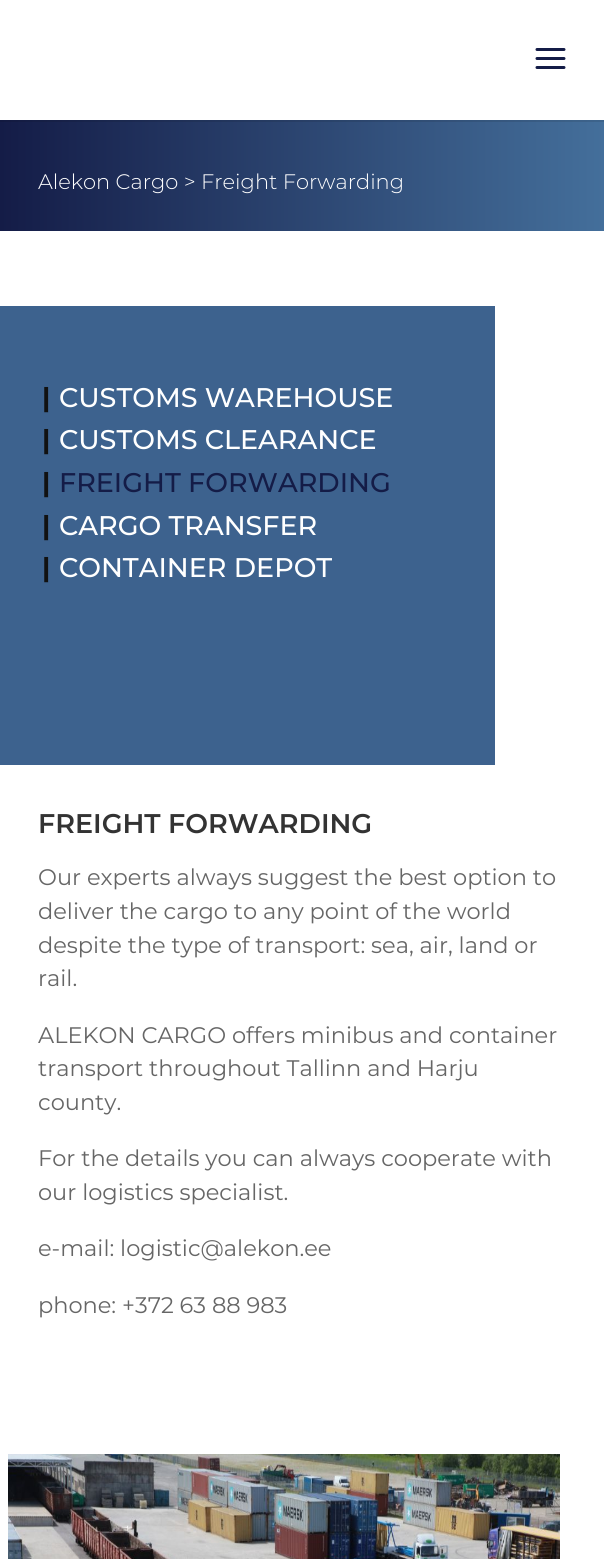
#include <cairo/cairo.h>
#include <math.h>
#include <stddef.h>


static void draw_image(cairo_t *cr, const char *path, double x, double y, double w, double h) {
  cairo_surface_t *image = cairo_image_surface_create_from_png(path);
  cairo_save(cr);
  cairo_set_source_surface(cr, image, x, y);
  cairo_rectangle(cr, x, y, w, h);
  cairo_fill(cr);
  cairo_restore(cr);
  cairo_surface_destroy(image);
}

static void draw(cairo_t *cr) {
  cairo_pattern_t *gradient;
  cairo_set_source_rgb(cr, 1, 1, 1);
  cairo_paint(cr);
  gradient = cairo_pattern_create_linear(0, 175, 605, 175);
  cairo_pattern_add_color_stop_rgba(gradient, 0, 20 / 255.0, 28 / 255.0, 71 / 255.0, 1);
  cairo_pattern_add_color_stop_rgba(gradient, 1, 68 / 255.0, 111 / 255.0, 155 / 255.0, 1);
  cairo_set_source(cr, gradient);
  cairo_pattern_destroy(gradient);
  cairo_rectangle(cr, 0, 120, 604, 111);
  cairo_fill(cr);
  cairo_set_source_rgba(cr, 0, 0, 0, 0.1);
  cairo_new_path(cr);
  cairo_move_to(cr, 0, 120);
  cairo_line_to(cr, 0, 122);
  cairo_line_to(cr, 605, 122);
  cairo_line_to(cr, 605, 2);
  cairo_line_to(cr, 604, 2);
  cairo_line_to(cr, 604, 120);
  cairo_close_path(cr);
  cairo_fill(cr);
  draw_image(cr, "images/1.png", 535, 48, 31, 21);
  cairo_set_source_rgb(cr, 61 / 255.0, 98 / 255.0, 142 / 255.0);
  cairo_rectangle(cr, 0, 306, 495, 459);
  cairo_fill(cr);
  draw_image(cr, "images/2.png", 8, 1454, 552, 105);
  cairo_select_font_face(cr, "Montserrat Light", CAIRO_FONT_SLANT_NORMAL, CAIRO_FONT_WEIGHT_NORMAL);
  cairo_set_font_size(cr, 21);
  cairo_set_source_rgb(cr, 1, 1, 1);
  cairo_move_to(cr, 38, 189);
  cairo_show_text(cr, "Alekon Cargo > Freight Forwarding");
  cairo_select_font_face(cr, "Montserrat", CAIRO_FONT_SLANT_NORMAL, CAIRO_FONT_WEIGHT_BOLD);
  cairo_set_font_size(cr, 27);
  cairo_set_source_rgb(cr, 17 / 255.0, 17 / 255.0, 17 / 255.0);
  cairo_move_to(cr, 42, 407);
  cairo_show_text(cr, "|");
  cairo_select_font_face(cr, "Montserrat Medium", CAIRO_FONT_SLANT_NORMAL, CAIRO_FONT_WEIGHT_NORMAL);
  cairo_set_source_rgb(cr, 1, 1, 1);
  cairo_move_to(cr, 59, 407);
  cairo_show_text(cr, "CUSTOMS WAREHOUSE");
  cairo_select_font_face(cr, "Montserrat", CAIRO_FONT_SLANT_NORMAL, CAIRO_FONT_WEIGHT_BOLD);
  cairo_set_source_rgb(cr, 17 / 255.0, 17 / 255.0, 17 / 255.0);
  cairo_move_to(cr, 42, 449);
  cairo_show_text(cr, "|");
  cairo_select_font_face(cr, "Montserrat Medium", CAIRO_FONT_SLANT_NORMAL, CAIRO_FONT_WEIGHT_NORMAL);
  cairo_set_source_rgb(cr, 1, 1, 1);
  cairo_move_to(cr, 59, 449);
  cairo_show_text(cr, "CUSTOMS CLEARANCE");
  cairo_select_font_face(cr, "Montserrat", CAIRO_FONT_SLANT_NORMAL, CAIRO_FONT_WEIGHT_BOLD);
  cairo_set_source_rgb(cr, 17 / 255.0, 17 / 255.0, 17 / 255.0);
  cairo_move_to(cr, 42, 492);
  cairo_show_text(cr, "|");
  cairo_select_font_face(cr, "Montserrat Medium", CAIRO_FONT_SLANT_NORMAL, CAIRO_FONT_WEIGHT_NORMAL);
  cairo_set_source_rgb(cr, 20 / 255.0, 28 / 255.0, 71 / 255.0);
  cairo_move_to(cr, 59, 492);
  cairo_show_text(cr, "FREIGHT FORWARDING");
  cairo_select_font_face(cr, "Montserrat", CAIRO_FONT_SLANT_NORMAL, CAIRO_FONT_WEIGHT_BOLD);
  cairo_set_source_rgb(cr, 17 / 255.0, 17 / 255.0, 17 / 255.0);
  cairo_move_to(cr, 42, 535);
  cairo_show_text(cr, "|");
  cairo_select_font_face(cr, "Montserrat Medium", CAIRO_FONT_SLANT_NORMAL, CAIRO_FONT_WEIGHT_NORMAL);
  cairo_set_source_rgb(cr, 1, 1, 1);
  cairo_move_to(cr, 59, 535);
  cairo_show_text(cr, "CARGO TRANSFER");
  cairo_select_font_face(cr, "Montserrat", CAIRO_FONT_SLANT_NORMAL, CAIRO_FONT_WEIGHT_BOLD);
  cairo_set_source_rgb(cr, 17 / 255.0, 17 / 255.0, 17 / 255.0);
  cairo_move_to(cr, 42, 577);
  cairo_show_text(cr, "|");
  cairo_select_font_face(cr, "Montserrat Medium", CAIRO_FONT_SLANT_NORMAL, CAIRO_FONT_WEIGHT_NORMAL);
  cairo_set_source_rgb(cr, 1, 1, 1);
  cairo_move_to(cr, 59, 577);
  cairo_show_text(cr, "CONTAINER DEPOT");
  cairo_select_font_face(cr, "Montserrat SemiBold", CAIRO_FONT_SLANT_NORMAL, CAIRO_FONT_WEIGHT_NORMAL);
  cairo_set_source_rgb(cr, 51 / 255.0, 51 / 255.0, 51 / 255.0);
  cairo_move_to(cr, 38, 833);
  cairo_show_text(cr, "FREIGHT FORWARDING");
  cairo_select_font_face(cr, "Montserrat", CAIRO_FONT_SLANT_NORMAL, CAIRO_FONT_WEIGHT_NORMAL);
  cairo_set_font_size(cr, 22.5);
  cairo_set_source_rgb(cr, 102 / 255.0, 102 / 255.0, 102 / 255.0);
  cairo_move_to(cr, 38, 885);
  cairo_show_text(cr, "Our experts always suggest the best option to");
  cairo_move_to(cr, 38, 919);
  cairo_show_text(cr, "deliver the cargo to any point of the world");
  cairo_move_to(cr, 38, 953);
  cairo_show_text(cr, "despite the type of transport: sea, air, land or");
  cairo_move_to(cr, 38, 986);
  cairo_show_text(cr, "rail.");
  cairo_move_to(cr, 38, 1043);
  cairo_show_text(cr, "ALEKON CARGO offers minibus and container");
  cairo_move_to(cr, 38, 1076);
  cairo_show_text(cr, "transport throughout Tallinn and Harju");
  cairo_move_to(cr, 38, 1110);
  cairo_show_text(cr, "county.");
  cairo_move_to(cr, 38, 1166);
  cairo_show_text(cr, "For the details you can always cooperate with");
  cairo_move_to(cr, 38, 1200);
  cairo_show_text(cr, "our logistics specialist.");
  cairo_move_to(cr, 38, 1256);
  cairo_show_text(cr, "e-mail: logistic@alekon.ee");
  cairo_move_to(cr, 38, 1313);
  cairo_show_text(cr, "phone: +372 63 88 983");
}

int main(void) {
  cairo_surface_t *surface = cairo_image_surface_create(CAIRO_FORMAT_RGB24, 604, 1559);
  cairo_t *cr = cairo_create(surface);
  cairo_font_options_t *options = cairo_font_options_create();
  cairo_font_options_set_hint_metrics(options, CAIRO_HINT_METRICS_OFF);
  cairo_font_options_set_hint_style(options, CAIRO_HINT_STYLE_NONE);
  cairo_set_font_options(cr, options);
  cairo_set_miter_limit(cr, 4);
  draw(cr);
  cairo_surface_write_to_png(surface, "out.png");
  cairo_font_options_destroy(options);
  cairo_destroy(cr);
  cairo_surface_destroy(surface);
  return 0;
}
